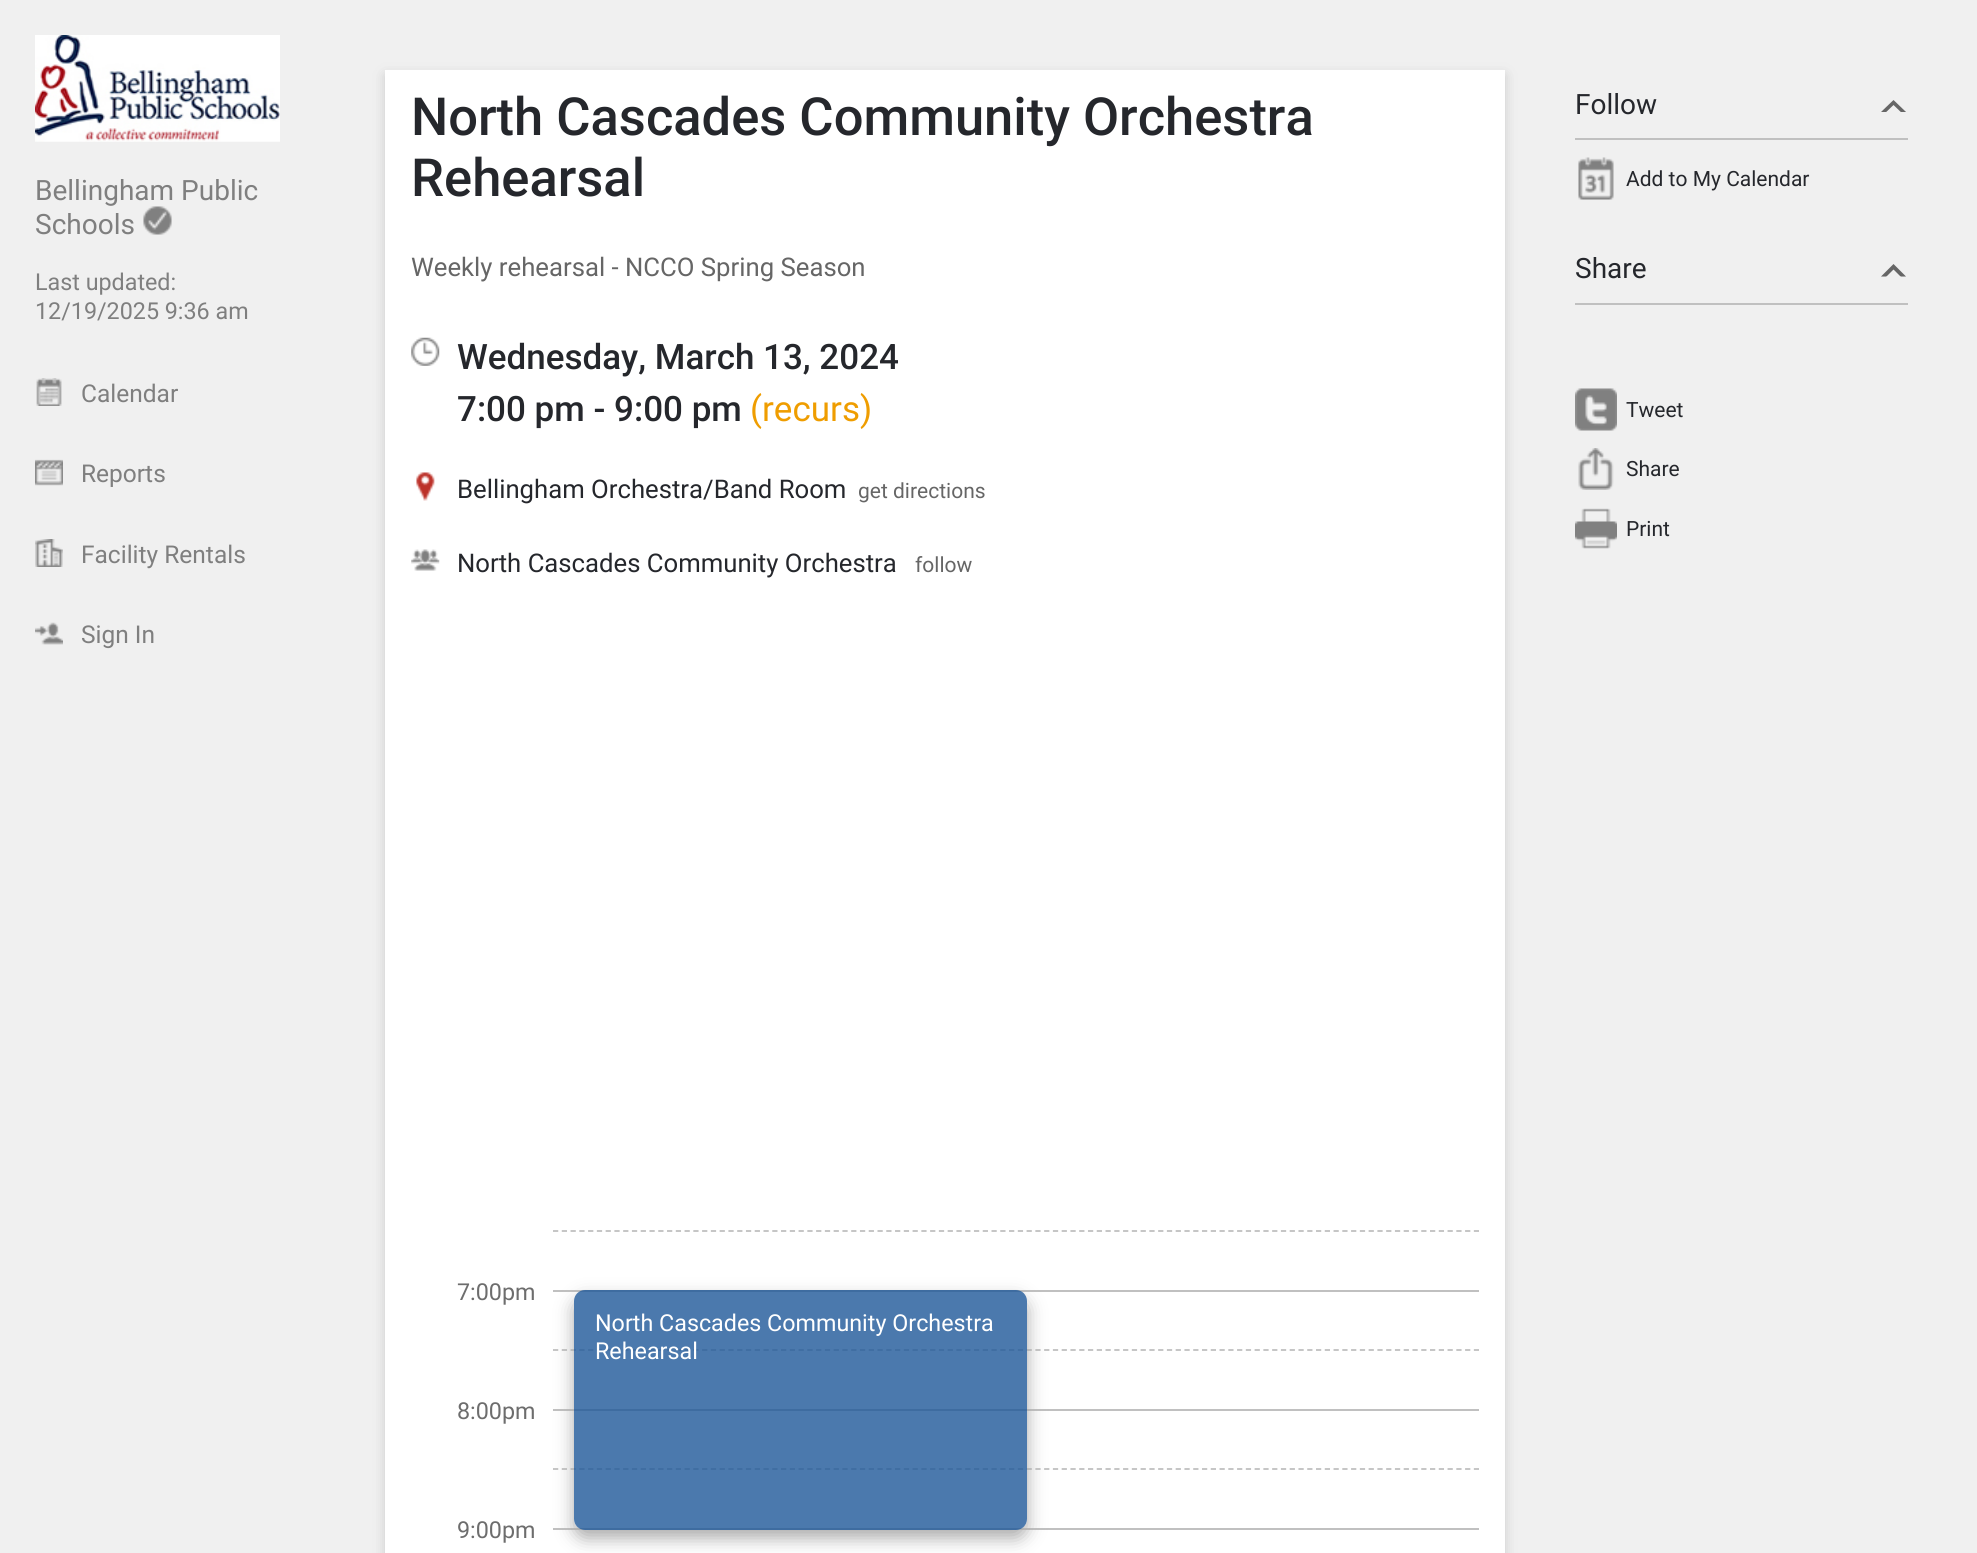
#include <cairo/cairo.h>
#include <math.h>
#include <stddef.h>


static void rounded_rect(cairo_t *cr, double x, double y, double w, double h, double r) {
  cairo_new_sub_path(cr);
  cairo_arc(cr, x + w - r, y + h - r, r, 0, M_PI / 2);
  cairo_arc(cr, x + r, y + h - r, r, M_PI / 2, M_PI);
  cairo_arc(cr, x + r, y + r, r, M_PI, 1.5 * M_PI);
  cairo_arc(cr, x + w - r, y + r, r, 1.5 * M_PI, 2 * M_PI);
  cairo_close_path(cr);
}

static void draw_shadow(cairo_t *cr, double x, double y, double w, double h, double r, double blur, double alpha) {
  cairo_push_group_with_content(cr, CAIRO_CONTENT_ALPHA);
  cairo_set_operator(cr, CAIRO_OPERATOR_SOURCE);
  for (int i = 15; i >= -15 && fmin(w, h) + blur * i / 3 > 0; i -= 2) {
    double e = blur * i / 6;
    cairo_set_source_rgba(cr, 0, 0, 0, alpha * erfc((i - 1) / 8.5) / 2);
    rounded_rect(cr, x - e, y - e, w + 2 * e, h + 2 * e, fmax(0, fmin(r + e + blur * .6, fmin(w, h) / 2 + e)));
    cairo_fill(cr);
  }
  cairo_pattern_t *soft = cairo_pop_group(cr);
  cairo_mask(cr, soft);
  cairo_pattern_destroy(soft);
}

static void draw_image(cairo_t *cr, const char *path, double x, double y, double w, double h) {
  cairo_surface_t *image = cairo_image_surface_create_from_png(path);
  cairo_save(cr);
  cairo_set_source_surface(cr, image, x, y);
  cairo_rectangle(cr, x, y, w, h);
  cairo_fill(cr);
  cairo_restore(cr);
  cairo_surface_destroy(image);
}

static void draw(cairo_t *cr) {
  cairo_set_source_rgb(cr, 240 / 255.0, 240 / 255.0, 240 / 255.0);
  cairo_paint(cr);
  draw_image(cr, "images/1.png", 35, 35, 245, 107);
  draw_image(cr, "images/2.png", 143, 206, 29, 29);
  draw_image(cr, "images/3.png", 36, 378, 26, 28);
  draw_image(cr, "images/4.png", 35, 459, 28, 27);
  draw_image(cr, "images/5.png", 35, 539, 28, 28);
  draw_image(cr, "images/6.png", 35, 622, 28, 23);
  cairo_set_source_rgb(cr, 204 / 255.0, 204 / 255.0, 204 / 255.0);
  draw_shadow(cr, 385, 75, 1120, 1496, 0, 6, 1);
  cairo_set_source_rgb(cr, 1, 1, 1);
  cairo_rectangle(cr, 385, 70, 1120, 1483);
  cairo_fill(cr);
  draw_image(cr, "images/7.png", 411, 337, 29, 29);
  draw_image(cr, "images/8.png", 416, 472, 19, 29);
  draw_image(cr, "images/9.png", 411, 549, 29, 22);
  cairo_new_path(cr);
  cairo_move_to(cr, 553, 1231);
  cairo_line_to(cr, 1479, 1231);
  cairo_set_source_rgb(cr, 192 / 255.0, 192 / 255.0, 192 / 255.0);
  cairo_set_line_width(cr, 1.8);
  cairo_set_dash(cr, (double[]){5.25, 3.52}, 2, 0);
  cairo_stroke(cr);
  cairo_rectangle(cr, 553, 1290, 926, 2);
  cairo_fill(cr);
  cairo_new_path(cr);
  cairo_move_to(cr, 553, 1350);
  cairo_line_to(cr, 1479, 1350);
  cairo_stroke(cr);
  cairo_rectangle(cr, 553, 1409, 926, 2);
  cairo_fill(cr);
  cairo_new_path(cr);
  cairo_move_to(cr, 553, 1469);
  cairo_line_to(cr, 1479, 1469);
  cairo_stroke(cr);
  cairo_rectangle(cr, 553, 1528, 926, 2);
  cairo_fill(cr);
  cairo_save(cr);
  cairo_set_fill_rule(cr, CAIRO_FILL_RULE_EVEN_ODD);
  cairo_new_path(cr);
  cairo_move_to(cr, 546, 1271);
  cairo_line_to(cr, 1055, 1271);
  cairo_line_to(cr, 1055, 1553);
  cairo_line_to(cr, 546, 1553);
  cairo_close_path(cr);
  cairo_move_to(cr, 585, 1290);
  cairo_line_to(cr, 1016, 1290);
  cairo_curve_to(cr, 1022, 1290, 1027, 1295, 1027, 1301);
  cairo_line_to(cr, 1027, 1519);
  cairo_curve_to(cr, 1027, 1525, 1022, 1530, 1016, 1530);
  cairo_line_to(cr, 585, 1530);
  cairo_curve_to(cr, 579, 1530, 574, 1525, 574, 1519);
  cairo_line_to(cr, 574, 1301);
  cairo_curve_to(cr, 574, 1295, 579, 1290, 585, 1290);
  cairo_close_path(cr);
  cairo_clip(cr);
  cairo_set_source_rgb(cr, 170 / 255.0, 170 / 255.0, 170 / 255.0);
  draw_shadow(cr, 574, 1299, 453, 239, 11, 9, 1);
  cairo_restore(cr);
  cairo_set_source_rgba(cr, 30 / 255.0, 88 / 255.0, 153 / 255.0, 0.8);
  rounded_rect(cr, 574, 1290, 453, 240, 11);
  cairo_fill(cr);
  cairo_set_source_rgb(cr, 102 / 255.0, 102 / 255.0, 102 / 255.0);
  cairo_new_path(cr);
  cairo_move_to(cr, 1906, 112);
  cairo_line_to(cr, 1881, 112);
  cairo_line_to(cr, 1893.5, 100);
  cairo_close_path(cr);
  cairo_fill(cr);
  cairo_set_source_rgb(cr, 240 / 255.0, 240 / 255.0, 240 / 255.0);
  cairo_new_path(cr);
  cairo_move_to(cr, 1906, 117);
  cairo_line_to(cr, 1881, 117);
  cairo_line_to(cr, 1893.5, 105);
  cairo_close_path(cr);
  cairo_fill(cr);
  cairo_set_source_rgb(cr, 192 / 255.0, 192 / 255.0, 192 / 255.0);
  cairo_rectangle(cr, 1575, 138, 333, 2);
  cairo_fill(cr);
  draw_image(cr, "images/10.png", 1578, 157, 36, 43);
  cairo_set_source_rgb(cr, 102 / 255.0, 102 / 255.0, 102 / 255.0);
  cairo_new_path(cr);
  cairo_move_to(cr, 1906, 276.5);
  cairo_line_to(cr, 1881, 276.5);
  cairo_line_to(cr, 1893.5, 264);
  cairo_close_path(cr);
  cairo_fill(cr);
  cairo_set_source_rgb(cr, 240 / 255.0, 240 / 255.0, 240 / 255.0);
  cairo_new_path(cr);
  cairo_move_to(cr, 1906, 282);
  cairo_line_to(cr, 1881, 282);
  cairo_line_to(cr, 1893.5, 269.5);
  cairo_close_path(cr);
  cairo_fill(cr);
  cairo_set_source_rgb(cr, 192 / 255.0, 192 / 255.0, 192 / 255.0);
  cairo_rectangle(cr, 1575, 303, 333, 2);
  cairo_fill(cr);
  draw_image(cr, "images/11.png", 1575, 388, 42, 43);
  draw_image(cr, "images/12.png", 1578, 448, 36, 42);
  draw_image(cr, "images/13.png", 1575, 508, 42, 41);
  cairo_select_font_face(cr, "Roboto", CAIRO_FONT_SLANT_NORMAL, CAIRO_FONT_WEIGHT_NORMAL);
  cairo_set_font_size(cr, 28);
  cairo_set_source_rgb(cr, 127 / 255.0, 127 / 255.0, 127 / 255.0);
  cairo_move_to(cr, 35, 200);
  cairo_show_text(cr, "Bellingham Public");
  cairo_move_to(cr, 35, 234);
  cairo_show_text(cr, "Schools");
  cairo_set_font_size(cr, 23.3);
  cairo_move_to(cr, 35, 290);
  cairo_show_text(cr, "Last updated:");
  cairo_move_to(cr, 35, 319);
  cairo_show_text(cr, "12/19/2025 9:36 am");
  cairo_set_font_size(cr, 24.5);
  cairo_move_to(cr, 81, 402);
  cairo_show_text(cr, "Calendar");
  cairo_move_to(cr, 81, 482);
  cairo_show_text(cr, "Reports");
  cairo_move_to(cr, 81, 563);
  cairo_show_text(cr, "Facility Rentals");
  cairo_move_to(cr, 81, 643);
  cairo_show_text(cr, "Sign In");
  cairo_select_font_face(cr, "Roboto Medium", CAIRO_FONT_SLANT_NORMAL, CAIRO_FONT_WEIGHT_NORMAL);
  cairo_set_font_size(cr, 52.5);
  cairo_set_source_rgb(cr, 37 / 255.0, 39 / 255.0, 44 / 255.0);
  cairo_move_to(cr, 411, 135);
  cairo_show_text(cr, "North Cascades Community Orchestra");
  cairo_move_to(cr, 411, 196);
  cairo_show_text(cr, "Rehearsal");
  cairo_select_font_face(cr, "Roboto", CAIRO_FONT_SLANT_NORMAL, CAIRO_FONT_WEIGHT_NORMAL);
  cairo_set_font_size(cr, 25.7);
  cairo_set_source_rgb(cr, 102 / 255.0, 102 / 255.0, 102 / 255.0);
  cairo_move_to(cr, 411, 276);
  cairo_show_text(cr, "Weekly rehearsal - NCCO Spring Season");
  cairo_select_font_face(cr, "Roboto Medium", CAIRO_FONT_SLANT_NORMAL, CAIRO_FONT_WEIGHT_NORMAL);
  cairo_set_font_size(cr, 35);
  cairo_set_source_rgb(cr, 37 / 255.0, 39 / 255.0, 44 / 255.0);
  cairo_move_to(cr, 457, 369);
  cairo_show_text(cr, "Wednesday, March 13, 2024");
  cairo_move_to(cr, 457, 421);
  cairo_show_text(cr, "7:00 pm - 9:00 pm");
  cairo_select_font_face(cr, "Roboto", CAIRO_FONT_SLANT_NORMAL, CAIRO_FONT_WEIGHT_NORMAL);
  cairo_set_source_rgb(cr, 239 / 255.0, 157 / 255.0, 0);
  cairo_move_to(cr, 750, 421);
  cairo_show_text(cr, "(recurs)");
  cairo_set_font_size(cr, 25.7);
  cairo_set_source_rgb(cr, 37 / 255.0, 39 / 255.0, 44 / 255.0);
  cairo_move_to(cr, 457, 498);
  cairo_show_text(cr, "Bellingham Orchestra/Band Room");
  cairo_set_font_size(cr, 21);
  cairo_set_source_rgb(cr, 102 / 255.0, 102 / 255.0, 102 / 255.0);
  cairo_move_to(cr, 858, 498);
  cairo_show_text(cr, "get directions");
  cairo_set_font_size(cr, 25.7);
  cairo_set_source_rgb(cr, 37 / 255.0, 39 / 255.0, 44 / 255.0);
  cairo_move_to(cr, 457, 572);
  cairo_show_text(cr, "North Cascades Community Orchestra");
  cairo_set_font_size(cr, 21);
  cairo_set_source_rgb(cr, 102 / 255.0, 102 / 255.0, 102 / 255.0);
  cairo_move_to(cr, 915, 572);
  cairo_show_text(cr, "follow");
  cairo_set_font_size(cr, 23.3);
  cairo_set_source_rgb(cr, 109 / 255.0, 109 / 255.0, 109 / 255.0);
  cairo_move_to(cr, 457, 1300);
  cairo_show_text(cr, "7:00pm");
  cairo_move_to(cr, 457, 1419);
  cairo_show_text(cr, "8:00pm");
  cairo_move_to(cr, 457, 1538);
  cairo_show_text(cr, "9:00pm");
  cairo_set_source_rgb(cr, 1, 1, 1);
  cairo_move_to(cr, 595, 1331);
  cairo_show_text(cr, "North Cascades Community Orchestra");
  cairo_move_to(cr, 595, 1359);
  cairo_show_text(cr, "Rehearsal");
  cairo_set_font_size(cr, 28);
  cairo_set_source_rgb(cr, 37 / 255.0, 39 / 255.0, 44 / 255.0);
  cairo_move_to(cr, 1575, 114);
  cairo_show_text(cr, "Follow");
  cairo_set_font_size(cr, 21);
  cairo_move_to(cr, 1626, 186);
  cairo_show_text(cr, "Add to My Calendar");
  cairo_set_font_size(cr, 28);
  cairo_move_to(cr, 1575, 278);
  cairo_show_text(cr, "Share");
  cairo_set_font_size(cr, 21);
  cairo_move_to(cr, 1626, 417);
  cairo_show_text(cr, "Tweet");
  cairo_move_to(cr, 1626, 476);
  cairo_show_text(cr, "Share");
  cairo_move_to(cr, 1626, 536);
  cairo_show_text(cr, "Print");
}

int main(void) {
  cairo_surface_t *surface = cairo_image_surface_create(CAIRO_FORMAT_RGB24, 1977, 1553);
  cairo_t *cr = cairo_create(surface);
  cairo_font_options_t *options = cairo_font_options_create();
  cairo_font_options_set_hint_metrics(options, CAIRO_HINT_METRICS_OFF);
  cairo_font_options_set_hint_style(options, CAIRO_HINT_STYLE_NONE);
  cairo_set_font_options(cr, options);
  cairo_set_miter_limit(cr, 4);
  draw(cr);
  cairo_surface_write_to_png(surface, "out.png");
  cairo_font_options_destroy(options);
  cairo_destroy(cr);
  cairo_surface_destroy(surface);
  return 0;
}
